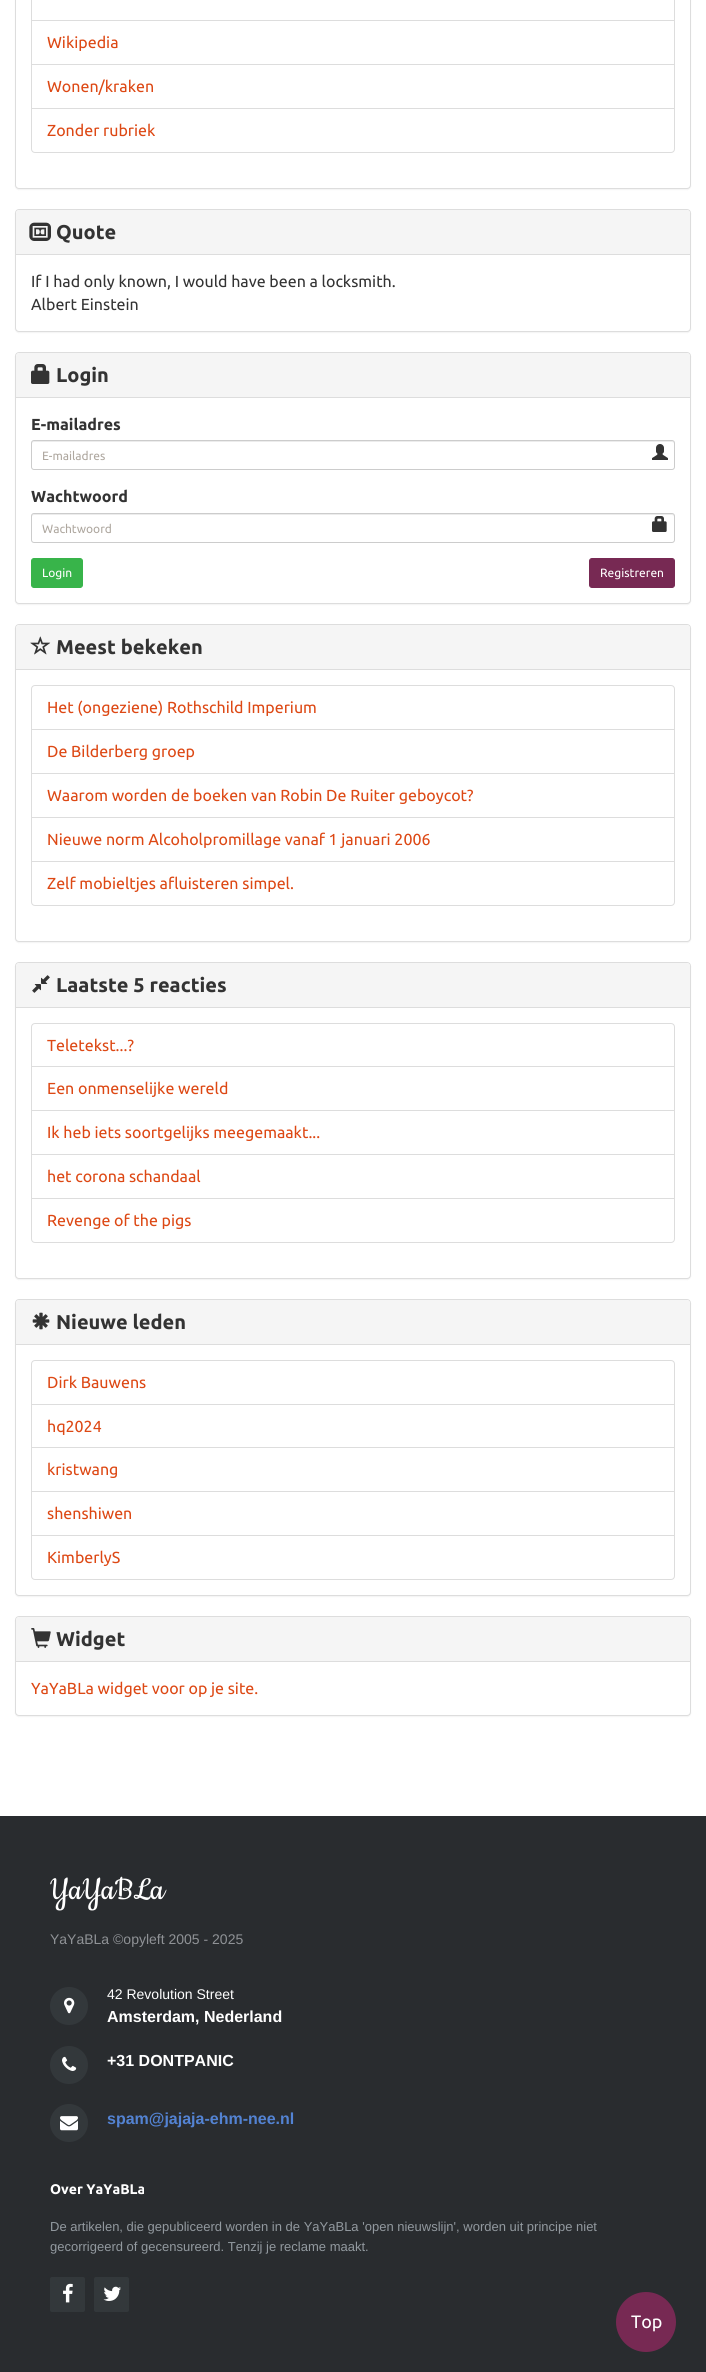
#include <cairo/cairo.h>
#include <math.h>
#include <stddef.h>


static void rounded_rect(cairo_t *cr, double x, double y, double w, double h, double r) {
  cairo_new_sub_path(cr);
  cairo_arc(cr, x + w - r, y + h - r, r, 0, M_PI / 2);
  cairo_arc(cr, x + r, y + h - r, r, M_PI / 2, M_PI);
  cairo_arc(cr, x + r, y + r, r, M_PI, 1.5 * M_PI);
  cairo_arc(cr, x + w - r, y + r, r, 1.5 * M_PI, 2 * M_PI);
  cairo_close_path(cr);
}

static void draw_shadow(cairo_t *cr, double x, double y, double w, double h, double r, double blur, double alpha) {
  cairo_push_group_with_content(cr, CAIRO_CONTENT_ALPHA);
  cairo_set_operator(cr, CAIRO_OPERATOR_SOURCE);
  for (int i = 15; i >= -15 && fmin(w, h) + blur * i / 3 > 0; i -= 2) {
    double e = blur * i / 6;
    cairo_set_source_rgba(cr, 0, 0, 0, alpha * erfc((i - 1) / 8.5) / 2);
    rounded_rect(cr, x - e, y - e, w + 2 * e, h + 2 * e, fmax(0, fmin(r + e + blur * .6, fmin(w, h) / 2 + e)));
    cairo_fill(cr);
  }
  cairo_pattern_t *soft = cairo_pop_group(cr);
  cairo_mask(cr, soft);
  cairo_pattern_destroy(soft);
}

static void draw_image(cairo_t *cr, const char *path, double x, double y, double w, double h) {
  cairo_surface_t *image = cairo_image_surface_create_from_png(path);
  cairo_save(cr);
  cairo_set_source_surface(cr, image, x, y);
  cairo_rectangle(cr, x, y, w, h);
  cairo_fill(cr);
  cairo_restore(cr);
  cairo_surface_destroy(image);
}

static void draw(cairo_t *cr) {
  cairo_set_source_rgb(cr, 1, 1, 1);
  cairo_paint(cr);
  cairo_set_source_rgb(cr, 0, 0, 0);
  draw_shadow(cr, 15, -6, 676, 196, 4, 0.5, 0.05);
  cairo_set_source_rgb(cr, 1, 1, 1);
  rounded_rect(cr, 15.5, -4.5, 675, 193, 3.5);
  cairo_fill_preserve(cr);
  cairo_set_source_rgb(cr, 221 / 255.0, 221 / 255.0, 221 / 255.0);
  cairo_set_line_width(cr, 1);
  cairo_stroke(cr);
  cairo_rectangle(cr, 31.5, -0.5, 643, 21);
  cairo_stroke(cr);
  cairo_rectangle(cr, 31.5, 20.5, 643, 44);
  cairo_stroke(cr);
  cairo_rectangle(cr, 31.5, 64.5, 643, 44);
  cairo_stroke(cr);
  cairo_set_source_rgb(cr, 1, 1, 1);
  cairo_new_path(cr);
  cairo_move_to(cr, 31.5, 108.5);
  cairo_line_to(cr, 674.5, 108.5);
  cairo_line_to(cr, 674.5, 149);
  cairo_curve_to(cr, 674.5, 151, 673, 152.5, 671, 152.5);
  cairo_line_to(cr, 35, 152.5);
  cairo_curve_to(cr, 33, 152.5, 31.5, 151, 31.5, 149);
  cairo_close_path(cr);
  cairo_fill_preserve(cr);
  cairo_set_source_rgb(cr, 221 / 255.0, 221 / 255.0, 221 / 255.0);
  cairo_stroke(cr);
  cairo_set_source_rgb(cr, 0, 0, 0);
  draw_shadow(cr, 15, 210, 676, 123, 4, 0.5, 0.05);
  cairo_set_source_rgb(cr, 1, 1, 1);
  rounded_rect(cr, 15.5, 209.5, 675, 122, 3.5);
  cairo_fill_preserve(cr);
  cairo_set_source_rgb(cr, 221 / 255.0, 221 / 255.0, 221 / 255.0);
  cairo_stroke(cr);
  cairo_set_source_rgb(cr, 245 / 255.0, 245 / 255.0, 245 / 255.0);
  cairo_new_path(cr);
  cairo_move_to(cr, 19, 210);
  cairo_line_to(cr, 687, 210);
  cairo_curve_to(cr, 688.5, 210, 690, 211.5, 690, 213);
  cairo_line_to(cr, 690, 255);
  cairo_line_to(cr, 16, 255);
  cairo_line_to(cr, 16, 213);
  cairo_curve_to(cr, 16, 211.5, 17.5, 210, 19, 210);
  cairo_close_path(cr);
  cairo_fill(cr);
  cairo_set_source_rgb(cr, 221 / 255.0, 221 / 255.0, 221 / 255.0);
  cairo_rectangle(cr, 16, 254, 674, 1);
  cairo_fill(cr);
  draw_image(cr, "images/1.png", 29, 222, 22, 19);
  cairo_set_source_rgb(cr, 0, 0, 0);
  draw_shadow(cr, 15, 353, 676, 252, 4, 0.5, 0.05);
  cairo_set_source_rgb(cr, 1, 1, 1);
  rounded_rect(cr, 15.5, 352.5, 675, 251, 3.5);
  cairo_fill_preserve(cr);
  cairo_set_source_rgb(cr, 221 / 255.0, 221 / 255.0, 221 / 255.0);
  cairo_stroke(cr);
  cairo_set_source_rgb(cr, 245 / 255.0, 245 / 255.0, 245 / 255.0);
  cairo_new_path(cr);
  cairo_move_to(cr, 19, 353);
  cairo_line_to(cr, 687, 353);
  cairo_curve_to(cr, 688.5, 353, 690, 354.5, 690, 356);
  cairo_line_to(cr, 690, 398);
  cairo_line_to(cr, 16, 398);
  cairo_line_to(cr, 16, 356);
  cairo_curve_to(cr, 16, 354.5, 17.5, 353, 19, 353);
  cairo_close_path(cr);
  cairo_fill(cr);
  cairo_set_source_rgb(cr, 221 / 255.0, 221 / 255.0, 221 / 255.0);
  cairo_rectangle(cr, 16, 397, 674, 1);
  cairo_fill(cr);
  draw_image(cr, "images/2.png", 31, 364, 19, 20);
  cairo_set_source_rgb(cr, 236 / 255.0, 236 / 255.0, 236 / 255.0);
  cairo_new_path(cr);
  cairo_move_to(cr, 34, 442);
  cairo_line_to(cr, 672, 442);
  cairo_curve_to(cr, 673, 442, 674, 443, 674, 444);
  cairo_curve_to(cr, 674, 443, 674, 441, 672, 441);
  cairo_line_to(cr, 34, 441);
  cairo_curve_to(cr, 32, 441, 32, 443, 32, 444);
  cairo_curve_to(cr, 32, 443, 33, 442, 34, 442);
  cairo_close_path(cr);
  cairo_fill(cr);
  rounded_rect(cr, 31.5, 440.5, 643, 29, 2.5);
  cairo_set_source_rgb(cr, 204 / 255.0, 204 / 255.0, 204 / 255.0);
  cairo_stroke(cr);
  draw_image(cr, "images/3.png", 652, 444, 16, 16);
  cairo_set_source_rgb(cr, 236 / 255.0, 236 / 255.0, 236 / 255.0);
  cairo_new_path(cr);
  cairo_move_to(cr, 34, 515);
  cairo_line_to(cr, 672, 515);
  cairo_curve_to(cr, 673, 515, 674, 516, 674, 517);
  cairo_curve_to(cr, 674, 516, 674, 514, 672, 514);
  cairo_line_to(cr, 34, 514);
  cairo_curve_to(cr, 32, 514, 32, 516, 32, 517);
  cairo_curve_to(cr, 32, 516, 33, 515, 34, 515);
  cairo_close_path(cr);
  cairo_fill(cr);
  rounded_rect(cr, 31.5, 513.5, 643, 29, 2.5);
  cairo_set_source_rgb(cr, 204 / 255.0, 204 / 255.0, 204 / 255.0);
  cairo_stroke(cr);
  draw_image(cr, "images/4.png", 652, 516, 15, 16);
  cairo_set_source_rgb(cr, 56 / 255.0, 180 / 255.0, 74 / 255.0);
  rounded_rect(cr, 31.5, 558.5, 51, 29, 2.5);
  cairo_fill_preserve(cr);
  cairo_stroke(cr);
  cairo_set_source_rgb(cr, 119 / 255.0, 41 / 255.0, 83 / 255.0);
  rounded_rect(cr, 589.5, 558.5, 85, 29, 2.5);
  cairo_fill_preserve(cr);
  cairo_stroke(cr);
  cairo_set_source_rgb(cr, 0, 0, 0);
  draw_shadow(cr, 15, 625, 676, 318, 4, 0.5, 0.05);
  cairo_set_source_rgb(cr, 1, 1, 1);
  rounded_rect(cr, 15.5, 624.5, 675, 317, 3.5);
  cairo_fill_preserve(cr);
  cairo_set_source_rgb(cr, 221 / 255.0, 221 / 255.0, 221 / 255.0);
  cairo_stroke(cr);
  cairo_set_source_rgb(cr, 245 / 255.0, 245 / 255.0, 245 / 255.0);
  cairo_new_path(cr);
  cairo_move_to(cr, 19, 625);
  cairo_line_to(cr, 687, 625);
  cairo_curve_to(cr, 688.5, 625, 690, 626.5, 690, 628);
  cairo_line_to(cr, 690, 670);
  cairo_line_to(cr, 16, 670);
  cairo_line_to(cr, 16, 628);
  cairo_curve_to(cr, 16, 626.5, 17.5, 625, 19, 625);
  cairo_close_path(cr);
  cairo_fill(cr);
  cairo_set_source_rgb(cr, 221 / 255.0, 221 / 255.0, 221 / 255.0);
  cairo_rectangle(cr, 16, 669, 674, 1);
  cairo_fill(cr);
  draw_image(cr, "images/5.png", 30, 636, 21, 19);
  cairo_new_path(cr);
  cairo_move_to(cr, 35, 685.5);
  cairo_line_to(cr, 671, 685.5);
  cairo_curve_to(cr, 673, 685.5, 674.5, 687, 674.5, 689);
  cairo_line_to(cr, 674.5, 729.5);
  cairo_line_to(cr, 31.5, 729.5);
  cairo_line_to(cr, 31.5, 689);
  cairo_curve_to(cr, 31.5, 687, 33, 685.5, 35, 685.5);
  cairo_close_path(cr);
  cairo_stroke(cr);
  cairo_rectangle(cr, 31.5, 729.5, 643, 44);
  cairo_stroke(cr);
  cairo_rectangle(cr, 31.5, 773.5, 643, 44);
  cairo_stroke(cr);
  cairo_rectangle(cr, 31.5, 817.5, 643, 44);
  cairo_stroke(cr);
  cairo_set_source_rgb(cr, 1, 1, 1);
  cairo_new_path(cr);
  cairo_move_to(cr, 31.5, 861.5);
  cairo_line_to(cr, 674.5, 861.5);
  cairo_line_to(cr, 674.5, 902);
  cairo_curve_to(cr, 674.5, 904, 673, 905.5, 671, 905.5);
  cairo_line_to(cr, 35, 905.5);
  cairo_curve_to(cr, 33, 905.5, 31.5, 904, 31.5, 902);
  cairo_close_path(cr);
  cairo_fill_preserve(cr);
  cairo_set_source_rgb(cr, 221 / 255.0, 221 / 255.0, 221 / 255.0);
  cairo_stroke(cr);
  cairo_set_source_rgb(cr, 0, 0, 0);
  draw_shadow(cr, 15, 963, 676, 317, 4, 0.5, 0.05);
  cairo_set_source_rgb(cr, 1, 1, 1);
  rounded_rect(cr, 15.5, 962.5, 675, 316, 3.5);
  cairo_fill_preserve(cr);
  cairo_set_source_rgb(cr, 221 / 255.0, 221 / 255.0, 221 / 255.0);
  cairo_stroke(cr);
  cairo_set_source_rgb(cr, 245 / 255.0, 245 / 255.0, 245 / 255.0);
  cairo_new_path(cr);
  cairo_move_to(cr, 19, 963);
  cairo_line_to(cr, 687, 963);
  cairo_curve_to(cr, 688.5, 963, 690, 964.5, 690, 966);
  cairo_line_to(cr, 690, 1008);
  cairo_line_to(cr, 16, 1008);
  cairo_line_to(cr, 16, 966);
  cairo_curve_to(cr, 16, 964.5, 17.5, 963, 19, 963);
  cairo_close_path(cr);
  cairo_fill(cr);
  cairo_set_source_rgb(cr, 221 / 255.0, 221 / 255.0, 221 / 255.0);
  cairo_rectangle(cr, 16, 1007, 674, 1);
  cairo_fill(cr);
  draw_image(cr, "images/6.png", 32, 975, 18, 18);
  cairo_new_path(cr);
  cairo_move_to(cr, 35, 1023.5);
  cairo_line_to(cr, 671, 1023.5);
  cairo_curve_to(cr, 673, 1023.5, 674.5, 1025, 674.5, 1027);
  cairo_line_to(cr, 674.5, 1066.5);
  cairo_line_to(cr, 31.5, 1066.5);
  cairo_line_to(cr, 31.5, 1027);
  cairo_curve_to(cr, 31.5, 1025, 33, 1023.5, 35, 1023.5);
  cairo_close_path(cr);
  cairo_stroke(cr);
  cairo_rectangle(cr, 31.5, 1066.5, 643, 44);
  cairo_stroke(cr);
  cairo_rectangle(cr, 31.5, 1110.5, 643, 44);
  cairo_stroke(cr);
  cairo_rectangle(cr, 31.5, 1154.5, 643, 44);
  cairo_stroke(cr);
  cairo_set_source_rgb(cr, 1, 1, 1);
  cairo_new_path(cr);
  cairo_move_to(cr, 31.5, 1198.5);
  cairo_line_to(cr, 674.5, 1198.5);
  cairo_line_to(cr, 674.5, 1239);
  cairo_curve_to(cr, 674.5, 1241, 673, 1242.5, 671, 1242.5);
  cairo_line_to(cr, 35, 1242.5);
  cairo_curve_to(cr, 33, 1242.5, 31.5, 1241, 31.5, 1239);
  cairo_close_path(cr);
  cairo_fill_preserve(cr);
  cairo_set_source_rgb(cr, 221 / 255.0, 221 / 255.0, 221 / 255.0);
  cairo_stroke(cr);
  cairo_set_source_rgb(cr, 0, 0, 0);
  draw_shadow(cr, 15, 1300, 676, 297, 4, 0.5, 0.05);
  cairo_set_source_rgb(cr, 1, 1, 1);
  rounded_rect(cr, 15.5, 1299.5, 675, 296, 3.5);
  cairo_fill_preserve(cr);
  cairo_set_source_rgb(cr, 221 / 255.0, 221 / 255.0, 221 / 255.0);
  cairo_stroke(cr);
  cairo_set_source_rgb(cr, 245 / 255.0, 245 / 255.0, 245 / 255.0);
  cairo_new_path(cr);
  cairo_move_to(cr, 19, 1300);
  cairo_line_to(cr, 687, 1300);
  cairo_curve_to(cr, 688.5, 1300, 690, 1301.5, 690, 1303);
  cairo_line_to(cr, 690, 1345);
  cairo_line_to(cr, 16, 1345);
  cairo_line_to(cr, 16, 1303);
  cairo_curve_to(cr, 16, 1301.5, 17.5, 1300, 19, 1300);
  cairo_close_path(cr);
  cairo_fill(cr);
  cairo_set_source_rgb(cr, 221 / 255.0, 221 / 255.0, 221 / 255.0);
  cairo_rectangle(cr, 16, 1344, 674, 1);
  cairo_fill(cr);
  draw_image(cr, "images/7.png", 32, 1312, 18, 18);
  cairo_new_path(cr);
  cairo_move_to(cr, 35, 1360.5);
  cairo_line_to(cr, 671, 1360.5);
  cairo_curve_to(cr, 673, 1360.5, 674.5, 1362, 674.5, 1364);
  cairo_line_to(cr, 674.5, 1404.5);
  cairo_line_to(cr, 31.5, 1404.5);
  cairo_line_to(cr, 31.5, 1364);
  cairo_curve_to(cr, 31.5, 1362, 33, 1360.5, 35, 1360.5);
  cairo_close_path(cr);
  cairo_stroke(cr);
  cairo_rectangle(cr, 31.5, 1404.5, 643, 43);
  cairo_stroke(cr);
  cairo_rectangle(cr, 31.5, 1447.5, 643, 44);
  cairo_stroke(cr);
  cairo_rectangle(cr, 31.5, 1491.5, 643, 44);
  cairo_stroke(cr);
  cairo_set_source_rgb(cr, 1, 1, 1);
  cairo_new_path(cr);
  cairo_move_to(cr, 31.5, 1535.5);
  cairo_line_to(cr, 674.5, 1535.5);
  cairo_line_to(cr, 674.5, 1576);
  cairo_curve_to(cr, 674.5, 1578, 673, 1579.5, 671, 1579.5);
  cairo_line_to(cr, 35, 1579.5);
  cairo_curve_to(cr, 33, 1579.5, 31.5, 1578, 31.5, 1576);
  cairo_close_path(cr);
  cairo_fill_preserve(cr);
  cairo_set_source_rgb(cr, 221 / 255.0, 221 / 255.0, 221 / 255.0);
  cairo_stroke(cr);
  cairo_set_source_rgb(cr, 0, 0, 0);
  draw_shadow(cr, 15, 1617, 676, 100, 4, 0.5, 0.05);
  cairo_set_source_rgb(cr, 1, 1, 1);
  rounded_rect(cr, 15.5, 1616.5, 675, 99, 3.5);
  cairo_fill_preserve(cr);
  cairo_set_source_rgb(cr, 221 / 255.0, 221 / 255.0, 221 / 255.0);
  cairo_stroke(cr);
  cairo_set_source_rgb(cr, 245 / 255.0, 245 / 255.0, 245 / 255.0);
  cairo_new_path(cr);
  cairo_move_to(cr, 19, 1617);
  cairo_line_to(cr, 687, 1617);
  cairo_curve_to(cr, 688.5, 1617, 690, 1618.5, 690, 1620);
  cairo_line_to(cr, 690, 1662);
  cairo_line_to(cr, 16, 1662);
  cairo_line_to(cr, 16, 1620);
  cairo_curve_to(cr, 16, 1618.5, 17.5, 1617, 19, 1617);
  cairo_close_path(cr);
  cairo_fill(cr);
  cairo_set_source_rgb(cr, 221 / 255.0, 221 / 255.0, 221 / 255.0);
  cairo_rectangle(cr, 16, 1661, 674, 1);
  cairo_fill(cr);
  draw_image(cr, "images/8.png", 31, 1628, 20, 20);
  cairo_set_source_rgb(cr, 41 / 255.0, 44 / 255.0, 47 / 255.0);
  cairo_rectangle(cr, 0, 1816, 706, 556);
  cairo_fill(cr);
  cairo_set_source_rgb(cr, 51 / 255.0, 56 / 255.0, 59 / 255.0);
  cairo_arc(cr, 69, 2006, 19, 0, 2 * M_PI);
  cairo_fill(cr);
  draw_image(cr, "images/9.png", 64, 1997, 11, 17);
  cairo_arc(cr, 69, 2065, 19, 0, 2 * M_PI);
  cairo_fill(cr);
  draw_image(cr, "images/10.png", 62, 2056, 15, 15);
  cairo_arc(cr, 69, 2123, 19, 0, 2 * M_PI);
  cairo_fill(cr);
  draw_image(cr, "images/11.png", 60, 2116, 18, 15);
  rounded_rect(cr, 50, 2277, 35, 35, 2);
  cairo_fill(cr);
  draw_image(cr, "images/12.png", 63, 2283, 10, 20);
  rounded_rect(cr, 94, 2277, 35, 35, 2);
  cairo_fill(cr);
  draw_image(cr, "images/13.png", 103, 2286, 18, 15);
  cairo_set_source_rgb(cr, 119 / 255.0, 41 / 255.0, 83 / 255.0);
  cairo_arc(cr, 646, 2322, 30, 0, 2 * M_PI);
  cairo_fill(cr);
  cairo_select_font_face(cr, "Ubuntu", CAIRO_FONT_SLANT_NORMAL, CAIRO_FONT_WEIGHT_NORMAL);
  cairo_set_font_size(cr, 16);
  cairo_set_source_rgb(cr, 221 / 255.0, 72 / 255.0, 20 / 255.0);
  cairo_move_to(cr, 47, 48);
  cairo_show_text(cr, "Wikipedia");
  cairo_move_to(cr, 47, 92);
  cairo_show_text(cr, "Wonen/kraken");
  cairo_move_to(cr, 47, 136);
  cairo_show_text(cr, "Zonder rubriek");
  cairo_select_font_face(cr, "Ubuntu", CAIRO_FONT_SLANT_NORMAL, CAIRO_FONT_WEIGHT_BOLD);
  cairo_set_font_size(cr, 20);
  cairo_set_source_rgb(cr, 51 / 255.0, 51 / 255.0, 51 / 255.0);
  cairo_move_to(cr, 56, 239);
  cairo_show_text(cr, "Quote");
  cairo_select_font_face(cr, "Ubuntu", CAIRO_FONT_SLANT_NORMAL, CAIRO_FONT_WEIGHT_NORMAL);
  cairo_set_font_size(cr, 16);
  cairo_move_to(cr, 31, 287);
  cairo_show_text(cr, "If I had only known, I would have been a locksmith.");
  cairo_move_to(cr, 31, 310);
  cairo_show_text(cr, "Albert Einstein");
  cairo_select_font_face(cr, "Ubuntu", CAIRO_FONT_SLANT_NORMAL, CAIRO_FONT_WEIGHT_BOLD);
  cairo_set_font_size(cr, 20);
  cairo_move_to(cr, 56, 382);
  cairo_show_text(cr, "Login");
  cairo_set_font_size(cr, 16);
  cairo_move_to(cr, 31, 430);
  cairo_show_text(cr, "E-mailadres");
  cairo_select_font_face(cr, "Ubuntu", CAIRO_FONT_SLANT_NORMAL, CAIRO_FONT_WEIGHT_NORMAL);
  cairo_set_font_size(cr, 12);
  cairo_set_source_rgb(cr, 174 / 255.0, 167 / 255.0, 159 / 255.0);
  cairo_move_to(cr, 42, 460);
  cairo_show_text(cr, "E-mailadres");
  cairo_select_font_face(cr, "Ubuntu", CAIRO_FONT_SLANT_NORMAL, CAIRO_FONT_WEIGHT_BOLD);
  cairo_set_font_size(cr, 16);
  cairo_set_source_rgb(cr, 51 / 255.0, 51 / 255.0, 51 / 255.0);
  cairo_move_to(cr, 31, 502);
  cairo_show_text(cr, "Wachtwoord");
  cairo_select_font_face(cr, "Ubuntu", CAIRO_FONT_SLANT_NORMAL, CAIRO_FONT_WEIGHT_NORMAL);
  cairo_set_font_size(cr, 12);
  cairo_set_source_rgb(cr, 174 / 255.0, 167 / 255.0, 159 / 255.0);
  cairo_move_to(cr, 42, 533);
  cairo_show_text(cr, "Wachtwoord");
  cairo_set_source_rgb(cr, 1, 1, 1);
  cairo_move_to(cr, 42, 577);
  cairo_show_text(cr, "Login");
  cairo_move_to(cr, 600, 577);
  cairo_show_text(cr, "Registreren");
  cairo_select_font_face(cr, "Ubuntu", CAIRO_FONT_SLANT_NORMAL, CAIRO_FONT_WEIGHT_BOLD);
  cairo_set_font_size(cr, 20);
  cairo_set_source_rgb(cr, 51 / 255.0, 51 / 255.0, 51 / 255.0);
  cairo_move_to(cr, 56, 654);
  cairo_show_text(cr, "Meest bekeken");
  cairo_select_font_face(cr, "Ubuntu", CAIRO_FONT_SLANT_NORMAL, CAIRO_FONT_WEIGHT_NORMAL);
  cairo_set_font_size(cr, 16);
  cairo_set_source_rgb(cr, 221 / 255.0, 72 / 255.0, 20 / 255.0);
  cairo_move_to(cr, 47, 713);
  cairo_show_text(cr, "Het (ongeziene) Rothschild Imperium");
  cairo_move_to(cr, 47, 757);
  cairo_show_text(cr, "De Bilderberg groep");
  cairo_move_to(cr, 47, 801);
  cairo_show_text(cr, "Waarom worden de boeken van Robin De Ruiter geboycot?");
  cairo_move_to(cr, 47, 845);
  cairo_show_text(cr, "Nieuwe norm Alcoholpromillage vanaf 1 januari 2006");
  cairo_move_to(cr, 47, 889);
  cairo_show_text(cr, "Zelf mobieltjes afluisteren simpel.");
  cairo_select_font_face(cr, "Ubuntu", CAIRO_FONT_SLANT_NORMAL, CAIRO_FONT_WEIGHT_BOLD);
  cairo_set_font_size(cr, 20);
  cairo_set_source_rgb(cr, 51 / 255.0, 51 / 255.0, 51 / 255.0);
  cairo_move_to(cr, 56, 992);
  cairo_show_text(cr, "Laatste 5 reacties");
  cairo_select_font_face(cr, "Ubuntu", CAIRO_FONT_SLANT_NORMAL, CAIRO_FONT_WEIGHT_NORMAL);
  cairo_set_font_size(cr, 16);
  cairo_set_source_rgb(cr, 221 / 255.0, 72 / 255.0, 20 / 255.0);
  cairo_move_to(cr, 47, 1051);
  cairo_show_text(cr, "Teletekst...?");
  cairo_move_to(cr, 47, 1094);
  cairo_show_text(cr, "Een onmenselijke wereld");
  cairo_move_to(cr, 47, 1138);
  cairo_show_text(cr, "Ik heb iets soortgelijks meegemaakt...");
  cairo_move_to(cr, 47, 1182);
  cairo_show_text(cr, "het corona schandaal");
  cairo_move_to(cr, 47, 1226);
  cairo_show_text(cr, "Revenge of the pigs");
  cairo_select_font_face(cr, "Ubuntu", CAIRO_FONT_SLANT_NORMAL, CAIRO_FONT_WEIGHT_BOLD);
  cairo_set_font_size(cr, 20);
  cairo_set_source_rgb(cr, 51 / 255.0, 51 / 255.0, 51 / 255.0);
  cairo_move_to(cr, 56, 1329);
  cairo_show_text(cr, "Nieuwe leden");
  cairo_select_font_face(cr, "Ubuntu", CAIRO_FONT_SLANT_NORMAL, CAIRO_FONT_WEIGHT_NORMAL);
  cairo_set_font_size(cr, 16);
  cairo_set_source_rgb(cr, 221 / 255.0, 72 / 255.0, 20 / 255.0);
  cairo_move_to(cr, 47, 1388);
  cairo_show_text(cr, "Dirk Bauwens");
  cairo_move_to(cr, 47, 1432);
  cairo_show_text(cr, "hq2024");
  cairo_move_to(cr, 47, 1475);
  cairo_show_text(cr, "kristwang");
  cairo_move_to(cr, 47, 1519);
  cairo_show_text(cr, "shenshiwen");
  cairo_move_to(cr, 47, 1563);
  cairo_show_text(cr, "KimberlyS");
  cairo_select_font_face(cr, "Ubuntu", CAIRO_FONT_SLANT_NORMAL, CAIRO_FONT_WEIGHT_BOLD);
  cairo_set_font_size(cr, 20);
  cairo_set_source_rgb(cr, 51 / 255.0, 51 / 255.0, 51 / 255.0);
  cairo_move_to(cr, 56, 1646);
  cairo_show_text(cr, "Widget");
  cairo_select_font_face(cr, "Ubuntu", CAIRO_FONT_SLANT_NORMAL, CAIRO_FONT_WEIGHT_NORMAL);
  cairo_set_font_size(cr, 16);
  cairo_set_source_rgb(cr, 221 / 255.0, 72 / 255.0, 20 / 255.0);
  cairo_move_to(cr, 31, 1694);
  cairo_show_text(cr, "YaYaBLa widget voor op je site.");
  cairo_select_font_face(cr, "Cookie", CAIRO_FONT_SLANT_NORMAL, CAIRO_FONT_WEIGHT_NORMAL);
  cairo_set_font_size(cr, 36);
  cairo_set_source_rgb(cr, 1, 1, 1);
  cairo_move_to(cr, 50, 1899);
  cairo_show_text(cr, "YaYaBLa");
  cairo_select_font_face(cr, "Liberation Sans", CAIRO_FONT_SLANT_NORMAL, CAIRO_FONT_WEIGHT_NORMAL);
  cairo_set_font_size(cr, 14);
  cairo_set_source_rgb(cr, 143 / 255.0, 146 / 255.0, 150 / 255.0);
  cairo_move_to(cr, 50, 1944);
  cairo_show_text(cr, "YaYaBLa ©opyleft 2005 - 2025");
  cairo_set_source_rgb(cr, 1, 1, 1);
  cairo_move_to(cr, 107, 1999);
  cairo_show_text(cr, "42 Revolution Street");
  cairo_select_font_face(cr, "Liberation Sans", CAIRO_FONT_SLANT_NORMAL, CAIRO_FONT_WEIGHT_BOLD);
  cairo_set_font_size(cr, 16);
  cairo_move_to(cr, 107, 2022);
  cairo_show_text(cr, "Amsterdam, Nederland");
  cairo_move_to(cr, 107, 2066);
  cairo_show_text(cr, "+31 DONTPANIC");
  cairo_set_source_rgb(cr, 83 / 255.0, 131 / 255.0, 211 / 255.0);
  cairo_move_to(cr, 107, 2124);
  cairo_show_text(cr, "spam@jajaja-ehm-nee.nl");
  cairo_select_font_face(cr, "Ubuntu", CAIRO_FONT_SLANT_NORMAL, CAIRO_FONT_WEIGHT_BOLD);
  cairo_set_font_size(cr, 14);
  cairo_set_source_rgb(cr, 1, 1, 1);
  cairo_move_to(cr, 50, 2194);
  cairo_show_text(cr, "Over YaYaBLa");
  cairo_select_font_face(cr, "Liberation Sans", CAIRO_FONT_SLANT_NORMAL, CAIRO_FONT_WEIGHT_NORMAL);
  cairo_set_font_size(cr, 13);
  cairo_set_source_rgb(cr, 146 / 255.0, 153 / 255.0, 159 / 255.0);
  cairo_move_to(cr, 50, 2231);
  cairo_show_text(cr, "De artikelen, die gepubliceerd worden in de YaYaBLa 'open nieuwslijn', worden uit principe niet");
  cairo_move_to(cr, 50, 2251);
  cairo_show_text(cr, "gecorrigeerd of gecensureerd. Tenzij je reclame maakt.");
  cairo_select_font_face(cr, "Ubuntu", CAIRO_FONT_SLANT_NORMAL, CAIRO_FONT_WEIGHT_NORMAL);
  cairo_set_font_size(cr, 18);
  cairo_set_source_rgb(cr, 1, 1, 1);
  cairo_move_to(cr, 631, 2328);
  cairo_show_text(cr, "Top");
}

int main(void) {
  cairo_surface_t *surface = cairo_image_surface_create(CAIRO_FORMAT_RGB24, 706, 2372);
  cairo_t *cr = cairo_create(surface);
  cairo_font_options_t *options = cairo_font_options_create();
  cairo_font_options_set_hint_metrics(options, CAIRO_HINT_METRICS_OFF);
  cairo_font_options_set_hint_style(options, CAIRO_HINT_STYLE_NONE);
  cairo_set_font_options(cr, options);
  cairo_set_miter_limit(cr, 4);
  draw(cr);
  cairo_surface_write_to_png(surface, "out.png");
  cairo_font_options_destroy(options);
  cairo_destroy(cr);
  cairo_surface_destroy(surface);
  return 0;
}
